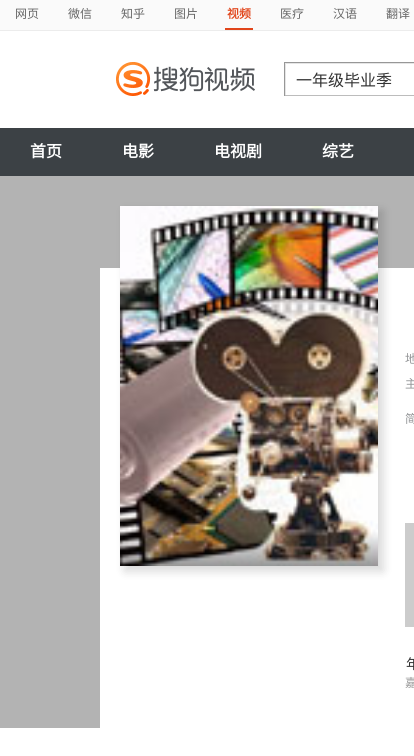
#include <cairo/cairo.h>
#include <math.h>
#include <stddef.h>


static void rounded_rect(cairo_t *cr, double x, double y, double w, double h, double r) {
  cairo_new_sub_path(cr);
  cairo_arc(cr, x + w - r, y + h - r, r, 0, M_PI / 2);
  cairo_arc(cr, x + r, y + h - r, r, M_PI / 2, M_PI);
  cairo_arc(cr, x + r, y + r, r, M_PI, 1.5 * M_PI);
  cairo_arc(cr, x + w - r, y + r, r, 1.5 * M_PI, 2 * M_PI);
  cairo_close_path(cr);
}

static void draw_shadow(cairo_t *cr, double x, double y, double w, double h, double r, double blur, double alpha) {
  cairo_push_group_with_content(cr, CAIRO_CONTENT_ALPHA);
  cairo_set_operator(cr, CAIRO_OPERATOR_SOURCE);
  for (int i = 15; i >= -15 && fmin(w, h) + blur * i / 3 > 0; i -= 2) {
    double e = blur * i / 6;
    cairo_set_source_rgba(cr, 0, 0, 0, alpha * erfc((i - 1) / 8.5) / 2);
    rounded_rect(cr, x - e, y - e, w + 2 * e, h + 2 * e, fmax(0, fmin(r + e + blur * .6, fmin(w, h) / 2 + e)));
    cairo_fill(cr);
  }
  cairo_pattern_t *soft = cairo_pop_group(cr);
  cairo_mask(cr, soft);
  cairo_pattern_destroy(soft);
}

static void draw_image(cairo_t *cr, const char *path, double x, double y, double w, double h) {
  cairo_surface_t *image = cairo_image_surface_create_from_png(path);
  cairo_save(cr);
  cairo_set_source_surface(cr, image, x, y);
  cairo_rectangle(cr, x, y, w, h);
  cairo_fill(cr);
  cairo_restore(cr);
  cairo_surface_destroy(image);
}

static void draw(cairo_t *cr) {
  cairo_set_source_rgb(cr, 1, 1, 1);
  cairo_paint(cr);
  cairo_set_source_rgb(cr, 250 / 255.0, 250 / 255.0, 250 / 255.0);
  cairo_rectangle(cr, 0, 0, 414, 30);
  cairo_fill(cr);
  cairo_set_source_rgb(cr, 236 / 255.0, 236 / 255.0, 236 / 255.0);
  cairo_rectangle(cr, 0, 30, 414, 1);
  cairo_fill(cr);
  cairo_set_source_rgb(cr, 225 / 255.0, 69 / 255.0, 27 / 255.0);
  cairo_rectangle(cr, 225, 28, 28, 2);
  cairo_fill(cr);
  draw_image(cr, "images/1.png", 116, 62, 139, 34);
  cairo_set_source_rgb(cr, 151 / 255.0, 151 / 255.0, 151 / 255.0);
  cairo_rectangle(cr, 284, 62, 130, 1);
  cairo_fill(cr);
  cairo_set_source_rgb(cr, 188 / 255.0, 188 / 255.0, 188 / 255.0);
  cairo_rectangle(cr, 284, 95, 130, 1);
  cairo_fill(cr);
  cairo_set_source_rgb(cr, 151 / 255.0, 151 / 255.0, 151 / 255.0);
  cairo_rectangle(cr, 284, 62, 1, 34);
  cairo_fill(cr);
  cairo_set_source_rgb(cr, 229 / 255.0, 229 / 255.0, 229 / 255.0);
  cairo_rectangle(cr, 285, 63, 129, 1);
  cairo_fill(cr);
  cairo_rectangle(cr, 285, 63, 1, 32);
  cairo_fill(cr);
  cairo_set_source_rgb(cr, 60 / 255.0, 65 / 255.0, 69 / 255.0);
  cairo_rectangle(cr, 0, 128, 414, 48);
  cairo_fill(cr);
  cairo_set_source_rgb(cr, 179 / 255.0, 179 / 255.0, 179 / 255.0);
  cairo_rectangle(cr, 0, 176, 414, 552);
  cairo_fill(cr);
  cairo_set_source_rgb(cr, 1, 1, 1);
  cairo_rectangle(cr, 100, 268, 314, 460);
  cairo_fill(cr);
  cairo_set_source_rgb(cr, 0, 0, 0);
  draw_shadow(cr, 125, 211, 258, 360, 0, 5, 0.16);
  draw_image(cr, "images/2.png", 120, 206, 258, 360);
  cairo_set_source_rgb(cr, 204 / 255.0, 204 / 255.0, 204 / 255.0);
  cairo_rectangle(cr, 405, 523, 9, 104);
  cairo_fill(cr);
  cairo_select_font_face(cr, "Noto Sans CJK SC", CAIRO_FONT_SLANT_NORMAL, CAIRO_FONT_WEIGHT_NORMAL);
  cairo_set_font_size(cr, 12);
  cairo_set_source_rgb(cr, 102 / 255.0, 102 / 255.0, 102 / 255.0);
  cairo_move_to(cr, 15, 18);
  cairo_show_text(cr, "网页");
  cairo_move_to(cr, 68, 18);
  cairo_show_text(cr, "微信");
  cairo_move_to(cr, 121, 18);
  cairo_show_text(cr, "知乎");
  cairo_move_to(cr, 174, 18);
  cairo_show_text(cr, "图片");
  cairo_select_font_face(cr, "Noto Sans CJK SC", CAIRO_FONT_SLANT_NORMAL, CAIRO_FONT_WEIGHT_BOLD);
  cairo_set_source_rgb(cr, 225 / 255.0, 69 / 255.0, 27 / 255.0);
  cairo_move_to(cr, 227, 18);
  cairo_show_text(cr, "视频");
  cairo_select_font_face(cr, "Noto Sans CJK SC", CAIRO_FONT_SLANT_NORMAL, CAIRO_FONT_WEIGHT_NORMAL);
  cairo_set_source_rgb(cr, 102 / 255.0, 102 / 255.0, 102 / 255.0);
  cairo_move_to(cr, 280, 18);
  cairo_show_text(cr, "医疗");
  cairo_move_to(cr, 333, 18);
  cairo_show_text(cr, "汉语");
  cairo_move_to(cr, 386, 18);
  cairo_show_text(cr, "翻译");
  cairo_set_font_size(cr, 16);
  cairo_set_source_rgb(cr, 51 / 255.0, 51 / 255.0, 51 / 255.0);
  cairo_move_to(cr, 296, 86);
  cairo_show_text(cr, "一年级毕业季");
  cairo_select_font_face(cr, "Noto Sans CJK SC", CAIRO_FONT_SLANT_NORMAL, CAIRO_FONT_WEIGHT_BOLD);
  cairo_set_source_rgb(cr, 1, 1, 1);
  cairo_move_to(cr, 30, 157);
  cairo_show_text(cr, "首页");
  cairo_move_to(cr, 122, 157);
  cairo_show_text(cr, "电影");
  cairo_move_to(cr, 214, 157);
  cairo_show_text(cr, "电视剧");
  cairo_move_to(cr, 322, 157);
  cairo_show_text(cr, "综艺");
  cairo_select_font_face(cr, "Noto Sans CJK SC", CAIRO_FONT_SLANT_NORMAL, CAIRO_FONT_WEIGHT_NORMAL);
  cairo_set_font_size(cr, 12);
  cairo_set_source_rgb(cr, 147 / 255.0, 149 / 255.0, 151 / 255.0);
  cairo_move_to(cr, 405, 363);
  cairo_show_text(cr, "地");
  cairo_move_to(cr, 405, 388);
  cairo_show_text(cr, "主");
  cairo_move_to(cr, 405, 423);
  cairo_show_text(cr, "简");
  cairo_set_font_size(cr, 14);
  cairo_set_source_rgb(cr, 51 / 255.0, 51 / 255.0, 51 / 255.0);
  cairo_move_to(cr, 406, 669);
  cairo_show_text(cr, "年");
  cairo_set_font_size(cr, 12);
  cairo_set_source_rgb(cr, 153 / 255.0, 153 / 255.0, 153 / 255.0);
  cairo_move_to(cr, 405, 687);
  cairo_show_text(cr, "嘉");
}

int main(void) {
  cairo_surface_t *surface = cairo_image_surface_create(CAIRO_FORMAT_RGB24, 414, 756);
  cairo_t *cr = cairo_create(surface);
  cairo_font_options_t *options = cairo_font_options_create();
  cairo_font_options_set_hint_metrics(options, CAIRO_HINT_METRICS_OFF);
  cairo_font_options_set_hint_style(options, CAIRO_HINT_STYLE_NONE);
  cairo_set_font_options(cr, options);
  cairo_set_miter_limit(cr, 4);
  draw(cr);
  cairo_surface_write_to_png(surface, "out.png");
  cairo_font_options_destroy(options);
  cairo_destroy(cr);
  cairo_surface_destroy(surface);
  return 0;
}
